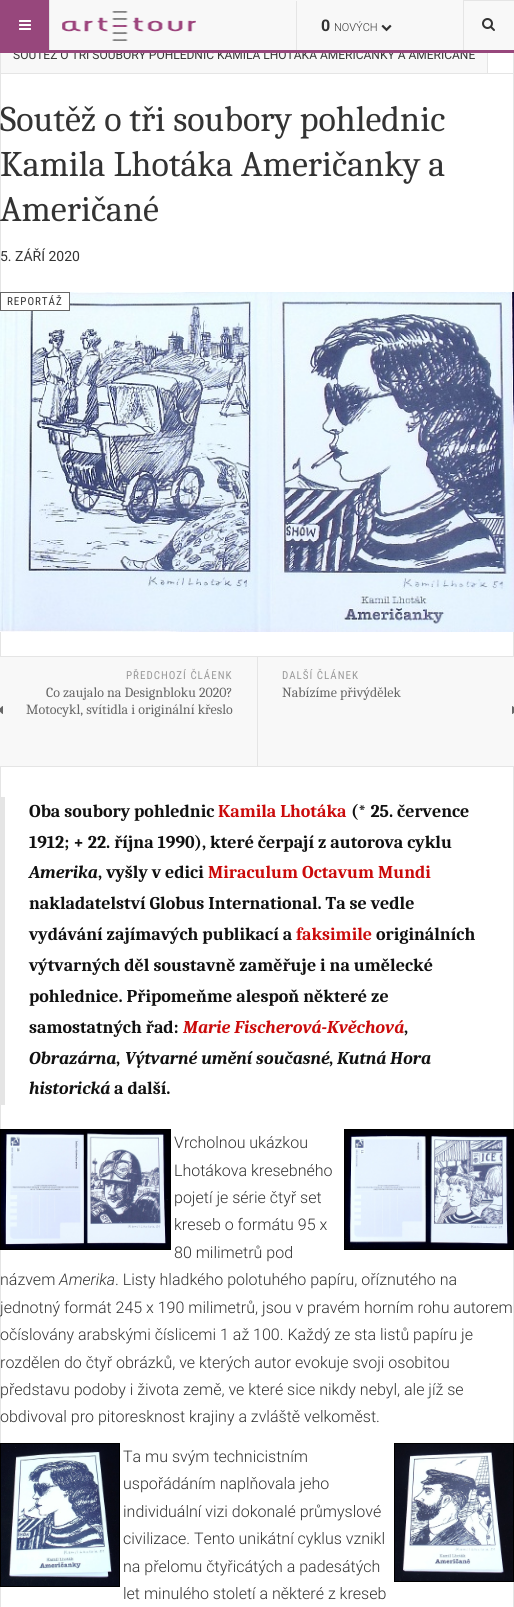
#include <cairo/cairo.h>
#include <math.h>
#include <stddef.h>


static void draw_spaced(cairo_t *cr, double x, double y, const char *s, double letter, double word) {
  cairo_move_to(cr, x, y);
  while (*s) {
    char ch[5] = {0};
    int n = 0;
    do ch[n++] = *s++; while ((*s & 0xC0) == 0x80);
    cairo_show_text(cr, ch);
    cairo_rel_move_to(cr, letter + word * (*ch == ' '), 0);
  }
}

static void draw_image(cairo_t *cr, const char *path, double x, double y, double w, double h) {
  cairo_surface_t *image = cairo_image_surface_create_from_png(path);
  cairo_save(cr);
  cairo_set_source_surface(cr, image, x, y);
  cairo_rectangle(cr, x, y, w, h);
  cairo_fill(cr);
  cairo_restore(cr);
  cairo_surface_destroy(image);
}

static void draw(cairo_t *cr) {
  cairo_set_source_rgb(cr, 1, 1, 1);
  cairo_paint(cr);
  cairo_set_source_rgb(cr, 229 / 255.0, 229 / 255.0, 229 / 255.0);
  cairo_rectangle(cr, 513, 53, 1, 20);
  cairo_fill(cr);
  cairo_rectangle(cr, 0, 53, 1, 20);
  cairo_fill(cr);
  cairo_set_source_rgb(cr, 248 / 255.0, 248 / 255.0, 248 / 255.0);
  cairo_rectangle(cr, 1, 53, 486, 20);
  cairo_fill(cr);
  cairo_set_source_rgb(cr, 229 / 255.0, 229 / 255.0, 229 / 255.0);
  cairo_rectangle(cr, 487, 53, 1, 20);
  cairo_fill(cr);
  cairo_rectangle(cr, 0.5, 73.5, 513, 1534);
  cairo_set_line_width(cr, 1);
  cairo_stroke(cr);
  draw_image(cr, "images/5.png", 0, 292, 514, 340);
  cairo_set_source_rgb(cr, 1, 1, 1);
  cairo_rectangle(cr, 0.5, 292.5, 69, 18);
  cairo_fill_preserve(cr);
  cairo_set_source_rgb(cr, 102 / 255.0, 102 / 255.0, 102 / 255.0);
  cairo_stroke(cr);
  cairo_set_source_rgb(cr, 229 / 255.0, 229 / 255.0, 229 / 255.0);
  cairo_rectangle(cr, 0, 656, 514, 1);
  cairo_fill(cr);
  cairo_rectangle(cr, 0, 766, 514, 1);
  cairo_fill(cr);
  cairo_rectangle(cr, 257, 657, 1, 109);
  cairo_fill(cr);
  cairo_set_source_rgb(cr, 248 / 255.0, 248 / 255.0, 248 / 255.0);
  cairo_rectangle(cr, 0, 657, 257, 109);
  cairo_fill(cr);
  draw_image(cr, "images/6.png", 0, 706, 3, 8);
  cairo_rectangle(cr, 258, 657, 256, 109);
  cairo_fill(cr);
  draw_image(cr, "images/7.png", 512, 706, 2, 8);
  cairo_set_source_rgb(cr, 229 / 255.0, 229 / 255.0, 229 / 255.0);
  cairo_rectangle(cr, 1, 797, 4, 308);
  cairo_fill(cr);
  cairo_rectangle(cr, 0.5, 1129.5, 170, 120);
  cairo_set_source_rgb(cr, 0, 0, 0);
  cairo_stroke(cr);
  draw_image(cr, "images/8.png", 1, 1130, 169, 119);
  cairo_rectangle(cr, 344.5, 1129.5, 169, 120);
  cairo_stroke(cr);
  draw_image(cr, "images/9.png", 345, 1130, 168, 119);
  cairo_rectangle(cr, 0.5, 1443.5, 119, 143);
  cairo_stroke(cr);
  draw_image(cr, "images/10.png", 1, 1444, 118, 142);
  cairo_rectangle(cr, 394.5, 1443.5, 119, 138);
  cairo_stroke(cr);
  draw_image(cr, "images/11.png", 395, 1444, 118, 137);
  cairo_select_font_face(cr, "Roboto", CAIRO_FONT_SLANT_NORMAL, CAIRO_FONT_WEIGHT_NORMAL);
  cairo_set_font_size(cr, 12);
  cairo_set_source_rgb(cr, 51 / 255.0, 51 / 255.0, 51 / 255.0);
  cairo_move_to(cr, 13, 59);
  cairo_show_text(cr, "SOUTĚŽ O TŘI SOUBORY POHLEDNIC KAMILA LHOTÁKA AMERIČANKY A AMERIČANÉ");
  cairo_set_source_rgb(cr, 248 / 255.0, 248 / 255.0, 248 / 255.0);
  cairo_rectangle(cr, 50, 0, 464, 50);
  cairo_fill(cr);
  cairo_set_source_rgb(cr, 229 / 255.0, 229 / 255.0, 229 / 255.0);
  cairo_rectangle(cr, 463, 0, 1, 50);
  cairo_fill(cr);
  cairo_rectangle(cr, 464, 0, 50, 1);
  cairo_fill(cr);
  draw_image(cr, "images/4.png", 482, 18, 13, 13);
  draw_image(cr, "images/3.png", 381, 24, 11, 8);
  cairo_select_font_face(cr, "Roboto Light", CAIRO_FONT_SLANT_NORMAL, CAIRO_FONT_WEIGHT_NORMAL);
  cairo_set_font_size(cr, 11);
  cairo_set_source_rgb(cr, 51 / 255.0, 51 / 255.0, 51 / 255.0);
  cairo_move_to(cr, 334, 31);
  cairo_show_text(cr, "NOVÝCH");
  cairo_select_font_face(cr, "Roboto", CAIRO_FONT_SLANT_NORMAL, CAIRO_FONT_WEIGHT_BOLD);
  cairo_set_font_size(cr, 16);
  cairo_move_to(cr, 321, 31);
  cairo_show_text(cr, "0");
  cairo_set_source_rgb(cr, 229 / 255.0, 229 / 255.0, 229 / 255.0);
  cairo_rectangle(cr, 296, 1, 1, 49);
  cairo_fill(cr);
  draw_image(cr, "images/2.png", 62, 11, 134, 30);
  cairo_set_source_rgb(cr, 151 / 255.0, 71 / 255.0, 124 / 255.0);
  cairo_rectangle(cr, 0, 0, 49, 50);
  cairo_fill(cr);
  draw_image(cr, "images/1.png", 19, 20, 12, 10);
  cairo_set_source_rgb(cr, 229 / 255.0, 229 / 255.0, 229 / 255.0);
  cairo_rectangle(cr, 49, 0, 1, 50);
  cairo_fill(cr);
  cairo_set_source_rgb(cr, 151 / 255.0, 71 / 255.0, 124 / 255.0);
  cairo_rectangle(cr, 0, 50, 514, 3);
  cairo_fill(cr);
  cairo_select_font_face(cr, "Caladea", CAIRO_FONT_SLANT_NORMAL, CAIRO_FONT_WEIGHT_NORMAL);
  cairo_set_font_size(cr, 36);
  cairo_set_source_rgb(cr, 51 / 255.0, 51 / 255.0, 51 / 255.0);
  cairo_move_to(cr, 0, 131);
  cairo_show_text(cr, "Soutěž o tři soubory pohlednic");
  cairo_move_to(cr, 0, 176);
  cairo_show_text(cr, "Kamila Lhotáka Američanky a");
  cairo_move_to(cr, 0, 221);
  cairo_show_text(cr, "Američané");
  cairo_select_font_face(cr, "Roboto", CAIRO_FONT_SLANT_NORMAL, CAIRO_FONT_WEIGHT_NORMAL);
  cairo_set_font_size(cr, 14);
  cairo_move_to(cr, 0, 261);
  cairo_show_text(cr, "5. ZÁŘÍ 2020");
  cairo_select_font_face(cr, "Roboto Condensed", CAIRO_FONT_SLANT_NORMAL, CAIRO_FONT_WEIGHT_NORMAL);
  cairo_set_font_size(cr, 11);
  draw_spaced(cr, 7, 305, "REPORTÁŽ", 1, 0);
  cairo_set_source_rgb(cr, 153 / 255.0, 153 / 255.0, 153 / 255.0);
  draw_spaced(cr, 126, 679, "PŘEDCHOZÍ ČLÁENK", 1, 0);
  cairo_select_font_face(cr, "Caladea", CAIRO_FONT_SLANT_NORMAL, CAIRO_FONT_WEIGHT_NORMAL);
  cairo_set_font_size(cr, 14);
  cairo_set_source_rgb(cr, 102 / 255.0, 102 / 255.0, 102 / 255.0);
  cairo_move_to(cr, 46, 697);
  cairo_show_text(cr, "Co zaujalo na Designbloku 2020?");
  cairo_move_to(cr, 26, 714);
  cairo_show_text(cr, "Motocykl, svítidla i originální křeslo");
  cairo_select_font_face(cr, "Roboto Condensed", CAIRO_FONT_SLANT_NORMAL, CAIRO_FONT_WEIGHT_NORMAL);
  cairo_set_font_size(cr, 11);
  cairo_set_source_rgb(cr, 153 / 255.0, 153 / 255.0, 153 / 255.0);
  draw_spaced(cr, 282, 679, "DALŠÍ ČLÁNEK", 1, 0);
  cairo_select_font_face(cr, "Caladea", CAIRO_FONT_SLANT_NORMAL, CAIRO_FONT_WEIGHT_NORMAL);
  cairo_set_font_size(cr, 14);
  cairo_set_source_rgb(cr, 102 / 255.0, 102 / 255.0, 102 / 255.0);
  cairo_move_to(cr, 282, 697);
  cairo_show_text(cr, "Nabízíme přivýdělek");
  cairo_select_font_face(cr, "Caladea", CAIRO_FONT_SLANT_NORMAL, CAIRO_FONT_WEIGHT_BOLD);
  cairo_set_font_size(cr, 18);
  cairo_set_source_rgb(cr, 17 / 255.0, 17 / 255.0, 17 / 255.0);
  cairo_move_to(cr, 29, 817);
  cairo_show_text(cr, "Oba soubory pohlednic");
  cairo_set_source_rgb(cr, 203 / 255.0, 11 / 255.0, 11 / 255.0);
  cairo_move_to(cr, 218, 817);
  cairo_show_text(cr, "Kamila Lhotáka");
  cairo_set_source_rgb(cr, 17 / 255.0, 17 / 255.0, 17 / 255.0);
  cairo_move_to(cr, 351, 817);
  cairo_show_text(cr, "(* 25. července");
  cairo_move_to(cr, 29, 848);
  cairo_show_text(cr, "1912; + 22. října 1990), které čerpají z autorova cyklu");
  cairo_select_font_face(cr, "Caladea", CAIRO_FONT_SLANT_ITALIC, CAIRO_FONT_WEIGHT_BOLD);
  cairo_move_to(cr, 29, 878);
  cairo_show_text(cr, "Amerika");
  cairo_select_font_face(cr, "Caladea", CAIRO_FONT_SLANT_NORMAL, CAIRO_FONT_WEIGHT_BOLD);
  cairo_move_to(cr, 98, 878);
  cairo_show_text(cr, ", vyšly v edici");
  cairo_set_source_rgb(cr, 203 / 255.0, 11 / 255.0, 11 / 255.0);
  cairo_move_to(cr, 208, 878);
  cairo_show_text(cr, "Miraculum Octavum Mundi");
  cairo_set_source_rgb(cr, 17 / 255.0, 17 / 255.0, 17 / 255.0);
  cairo_move_to(cr, 29, 909);
  cairo_show_text(cr, "nakladatelství Globus International. Ta se vedle");
  cairo_move_to(cr, 29, 940);
  cairo_show_text(cr, "vydávání zajímavých publikací a");
  cairo_set_source_rgb(cr, 203 / 255.0, 11 / 255.0, 11 / 255.0);
  cairo_move_to(cr, 296, 940);
  cairo_show_text(cr, "faksimile");
  cairo_set_source_rgb(cr, 17 / 255.0, 17 / 255.0, 17 / 255.0);
  cairo_move_to(cr, 376, 940);
  cairo_show_text(cr, "originálních");
  cairo_move_to(cr, 29, 971);
  cairo_show_text(cr, "výtvarných děl soustavně zaměřuje i na umělecké");
  cairo_move_to(cr, 29, 1002);
  cairo_show_text(cr, "pohlednice. Připomeňme alespoň některé ze");
  cairo_move_to(cr, 29, 1033);
  cairo_show_text(cr, "samostatných řad:");
  cairo_select_font_face(cr, "Caladea", CAIRO_FONT_SLANT_ITALIC, CAIRO_FONT_WEIGHT_BOLD);
  cairo_set_source_rgb(cr, 203 / 255.0, 11 / 255.0, 11 / 255.0);
  cairo_move_to(cr, 183, 1033);
  cairo_show_text(cr, "Marie Fischerová-Kvěchová");
  cairo_select_font_face(cr, "Caladea", CAIRO_FONT_SLANT_NORMAL, CAIRO_FONT_WEIGHT_BOLD);
  cairo_set_source_rgb(cr, 17 / 255.0, 17 / 255.0, 17 / 255.0);
  cairo_move_to(cr, 404, 1033);
  cairo_show_text(cr, ",");
  cairo_select_font_face(cr, "Caladea", CAIRO_FONT_SLANT_ITALIC, CAIRO_FONT_WEIGHT_BOLD);
  cairo_move_to(cr, 29, 1064);
  cairo_show_text(cr, "Obrazárna");
  cairo_select_font_face(cr, "Caladea", CAIRO_FONT_SLANT_NORMAL, CAIRO_FONT_WEIGHT_BOLD);
  cairo_move_to(cr, 116, 1064);
  cairo_show_text(cr, ",");
  cairo_select_font_face(cr, "Caladea", CAIRO_FONT_SLANT_ITALIC, CAIRO_FONT_WEIGHT_BOLD);
  cairo_move_to(cr, 125, 1064);
  cairo_show_text(cr, "Výtvarné umění současné");
  cairo_select_font_face(cr, "Caladea", CAIRO_FONT_SLANT_NORMAL, CAIRO_FONT_WEIGHT_BOLD);
  cairo_move_to(cr, 329, 1064);
  cairo_show_text(cr, ",");
  cairo_select_font_face(cr, "Caladea", CAIRO_FONT_SLANT_ITALIC, CAIRO_FONT_WEIGHT_BOLD);
  cairo_move_to(cr, 337, 1064);
  cairo_show_text(cr, "Kutná Hora");
  cairo_move_to(cr, 29, 1094);
  cairo_show_text(cr, "historická");
  cairo_select_font_face(cr, "Caladea", CAIRO_FONT_SLANT_NORMAL, CAIRO_FONT_WEIGHT_BOLD);
  cairo_move_to(cr, 114, 1094);
  cairo_show_text(cr, "a další.");
  cairo_select_font_face(cr, "Roboto Light", CAIRO_FONT_SLANT_NORMAL, CAIRO_FONT_WEIGHT_NORMAL);
  cairo_set_font_size(cr, 16);
  cairo_set_source_rgb(cr, 51 / 255.0, 51 / 255.0, 51 / 255.0);
  cairo_move_to(cr, 174, 1148);
  cairo_show_text(cr, "Vrcholnou ukázkou");
  cairo_move_to(cr, 174, 1176);
  cairo_show_text(cr, "Lhotákova kresebného");
  cairo_move_to(cr, 174, 1203);
  cairo_show_text(cr, "pojetí je série čtyř set");
  cairo_move_to(cr, 174, 1230);
  cairo_show_text(cr, "kreseb o formátu 95 x");
  cairo_move_to(cr, 174, 1258);
  cairo_show_text(cr, "80 milimetrů pod");
  cairo_move_to(cr, 0, 1285);
  cairo_show_text(cr, "názvem");
  cairo_select_font_face(cr, "Roboto Light", CAIRO_FONT_SLANT_ITALIC, CAIRO_FONT_WEIGHT_NORMAL);
  cairo_move_to(cr, 59, 1285);
  cairo_show_text(cr, "Amerika");
  cairo_select_font_face(cr, "Roboto Light", CAIRO_FONT_SLANT_NORMAL, CAIRO_FONT_WEIGHT_NORMAL);
  cairo_move_to(cr, 115, 1285);
  cairo_show_text(cr, ". Listy hladkého polotuhého papíru, oříznutého na");
  cairo_move_to(cr, 0, 1313);
  cairo_show_text(cr, "jednotný formát 245 x 190 milimetrů, jsou v pravém horním rohu autorem");
  cairo_move_to(cr, 0, 1340);
  cairo_show_text(cr, "očíslovány arabskými číslicemi 1 až 100. Každý ze sta listů papíru je");
  cairo_move_to(cr, 0, 1368);
  cairo_show_text(cr, "rozdělen do čtyř obrázků, ve kterých autor evokuje svoji osobitou");
  cairo_move_to(cr, 0, 1395);
  cairo_show_text(cr, "představu podoby i života země, ve které sice nikdy nebyl, ale jíž se");
  cairo_move_to(cr, 0, 1422);
  cairo_show_text(cr, "obdivoval pro pitoresknost krajiny a zvláště velkoměst.");
  cairo_move_to(cr, 123, 1462);
  cairo_show_text(cr, "Ta mu svým technicistním");
  cairo_move_to(cr, 123, 1489);
  cairo_show_text(cr, "uspořádáním naplňovala jeho");
  cairo_move_to(cr, 123, 1517);
  cairo_show_text(cr, "individuální vizi dokonalé průmyslové");
  cairo_move_to(cr, 123, 1544);
  cairo_show_text(cr, "civilizace. Tento unikátní cyklus vznikl");
  cairo_move_to(cr, 123, 1572);
  cairo_show_text(cr, "na přelomu čtyřicátých a padesátých");
  cairo_move_to(cr, 123, 1599);
  cairo_show_text(cr, "let minulého století a některé z kreseb");
}

int main(void) {
  cairo_surface_t *surface = cairo_image_surface_create(CAIRO_FORMAT_RGB24, 514, 1607);
  cairo_t *cr = cairo_create(surface);
  cairo_font_options_t *options = cairo_font_options_create();
  cairo_font_options_set_hint_metrics(options, CAIRO_HINT_METRICS_OFF);
  cairo_font_options_set_hint_style(options, CAIRO_HINT_STYLE_NONE);
  cairo_set_font_options(cr, options);
  cairo_set_miter_limit(cr, 4);
  draw(cr);
  cairo_surface_write_to_png(surface, "out.png");
  cairo_font_options_destroy(options);
  cairo_destroy(cr);
  cairo_surface_destroy(surface);
  return 0;
}
